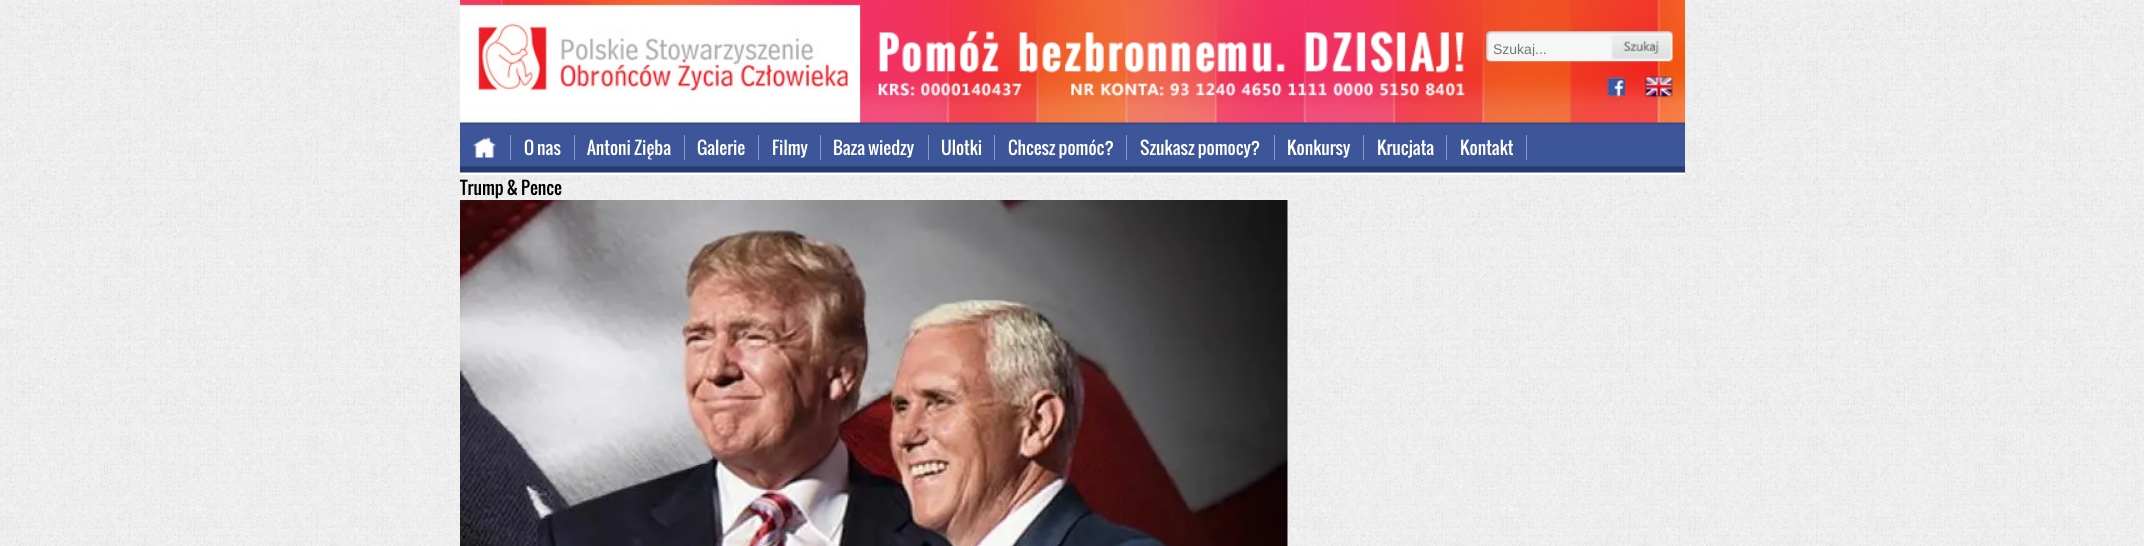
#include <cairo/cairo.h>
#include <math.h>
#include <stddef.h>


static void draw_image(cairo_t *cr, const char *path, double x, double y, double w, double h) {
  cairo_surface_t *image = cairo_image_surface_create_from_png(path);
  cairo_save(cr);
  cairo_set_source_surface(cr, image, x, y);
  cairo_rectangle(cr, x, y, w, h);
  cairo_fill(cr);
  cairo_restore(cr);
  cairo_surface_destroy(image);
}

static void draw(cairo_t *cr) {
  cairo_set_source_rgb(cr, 1, 1, 1);
  cairo_paint(cr);
  draw_image(cr, "images/1.png", 0, 0, 2144, 546);
  draw_image(cr, "images/2.png", 460, 0, 1225, 123);
  draw_image(cr, "images/3.png", 460, 0, 400, 120);
  draw_image(cr, "images/4.png", 878, 31, 588, 66);
  draw_image(cr, "images/5.png", 1486, 31, 187, 31);
  draw_image(cr, "images/6.png", 1611, 35, 61, 24);
  draw_image(cr, "images/7.png", 1607, 77, 19, 20);
  draw_image(cr, "images/8.png", 1645, 76, 28, 22);
  draw_image(cr, "images/9.png", 460, 122, 1225, 53);
  draw_image(cr, "images/10.png", 472, 137, 25, 21);
  cairo_set_source_rgb(cr, 139 / 255.0, 154 / 255.0, 194 / 255.0);
  cairo_rectangle(cr, 510, 135, 1, 25);
  cairo_fill(cr);
  cairo_rectangle(cr, 574, 135, 1, 25);
  cairo_fill(cr);
  cairo_rectangle(cr, 684, 135, 1, 25);
  cairo_fill(cr);
  cairo_rectangle(cr, 758, 135, 1, 25);
  cairo_fill(cr);
  cairo_rectangle(cr, 820, 135, 1, 25);
  cairo_fill(cr);
  cairo_rectangle(cr, 928, 135, 1, 25);
  cairo_fill(cr);
  cairo_rectangle(cr, 994, 135, 1, 25);
  cairo_fill(cr);
  cairo_rectangle(cr, 1126, 135, 1, 25);
  cairo_fill(cr);
  cairo_rectangle(cr, 1274, 135, 1, 25);
  cairo_fill(cr);
  cairo_rectangle(cr, 1363, 135, 1, 25);
  cairo_fill(cr);
  cairo_rectangle(cr, 1446, 135, 1, 25);
  cairo_fill(cr);
  cairo_rectangle(cr, 1526, 135, 1, 25);
  cairo_fill(cr);
  draw_image(cr, "images/11.png", 460, 200, 828, 346);
  cairo_save(cr);
  cairo_rectangle(cr, 1493, 41, 130, 15);
  cairo_clip(cr);
  cairo_select_font_face(cr, "Liberation Sans", CAIRO_FONT_SLANT_NORMAL, CAIRO_FONT_WEIGHT_NORMAL);
  cairo_set_font_size(cr, 14);
  cairo_set_source_rgb(cr, 117 / 255.0, 117 / 255.0, 117 / 255.0);
  cairo_move_to(cr, 1493, 54);
  cairo_show_text(cr, "Szukaj...");
  cairo_restore(cr);
  cairo_select_font_face(cr, "oswald", CAIRO_FONT_SLANT_NORMAL, CAIRO_FONT_WEIGHT_NORMAL);
  cairo_set_font_size(cr, 17.5);
  cairo_set_source_rgb(cr, 1, 1, 1);
  cairo_move_to(cr, 524, 155);
  cairo_show_text(cr, "O nas");
  cairo_move_to(cr, 587, 155);
  cairo_show_text(cr, "Antoni Zięba");
  cairo_move_to(cr, 697, 155);
  cairo_show_text(cr, "Galerie");
  cairo_move_to(cr, 772, 155);
  cairo_show_text(cr, "Filmy");
  cairo_move_to(cr, 833, 155);
  cairo_show_text(cr, "Baza wiedzy");
  cairo_move_to(cr, 941, 155);
  cairo_show_text(cr, "Ulotki");
  cairo_move_to(cr, 1008, 155);
  cairo_show_text(cr, "Chcesz pomóc?");
  cairo_move_to(cr, 1140, 155);
  cairo_show_text(cr, "Szukasz pomocy?");
  cairo_move_to(cr, 1287, 155);
  cairo_show_text(cr, "Konkursy");
  cairo_move_to(cr, 1377, 155);
  cairo_show_text(cr, "Krucjata");
  cairo_move_to(cr, 1460, 155);
  cairo_show_text(cr, "Kontakt");
  cairo_set_source_rgb(cr, 0, 0, 0);
  cairo_move_to(cr, 460, 195);
  cairo_show_text(cr, "Trump & Pence");
}

int main(void) {
  cairo_surface_t *surface = cairo_image_surface_create(CAIRO_FORMAT_RGB24, 2144, 546);
  cairo_t *cr = cairo_create(surface);
  cairo_font_options_t *options = cairo_font_options_create();
  cairo_font_options_set_hint_metrics(options, CAIRO_HINT_METRICS_OFF);
  cairo_font_options_set_hint_style(options, CAIRO_HINT_STYLE_NONE);
  cairo_set_font_options(cr, options);
  cairo_set_miter_limit(cr, 4);
  draw(cr);
  cairo_surface_write_to_png(surface, "out.png");
  cairo_font_options_destroy(options);
  cairo_destroy(cr);
  cairo_surface_destroy(surface);
  return 0;
}
